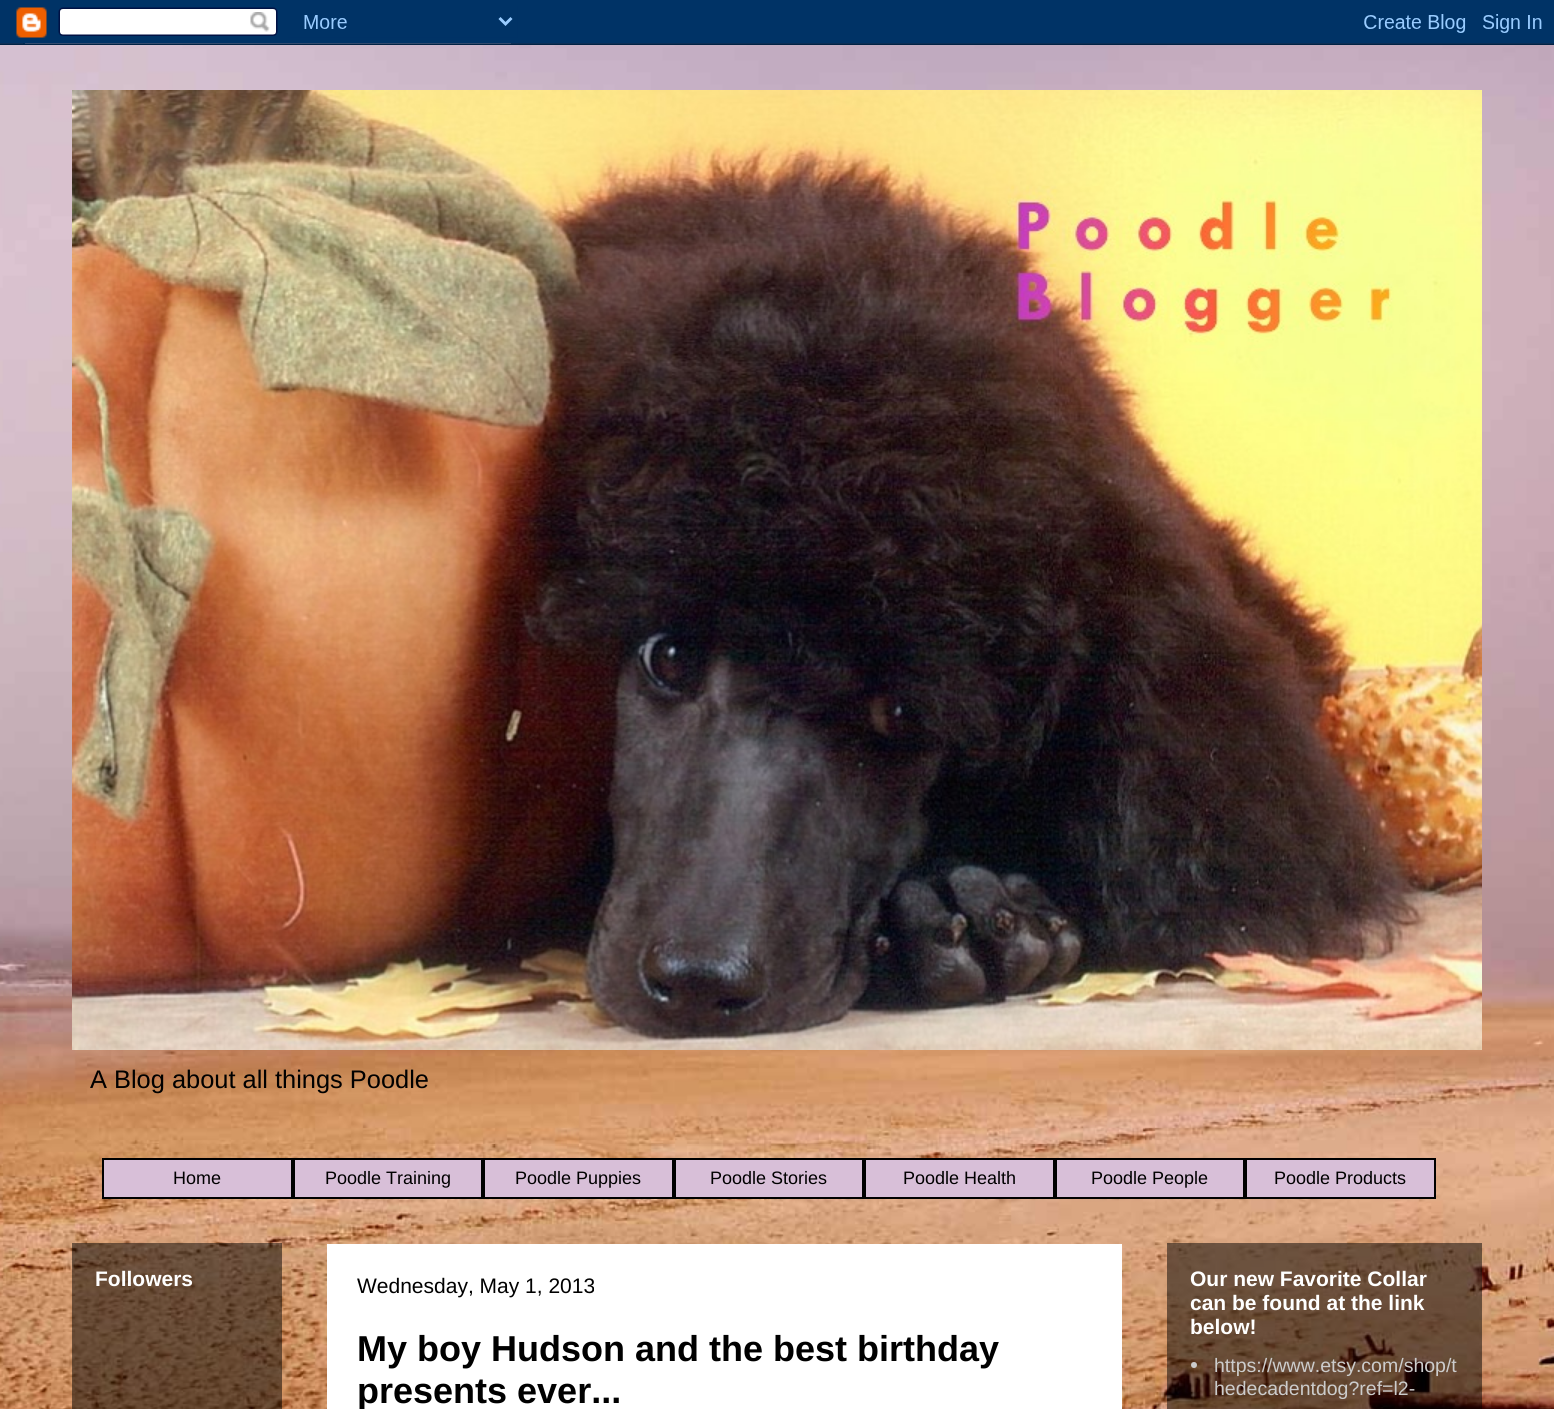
#include <cairo/cairo.h>
#include <math.h>
#include <stddef.h>


static void draw_image(cairo_t *cr, const char *path, double x, double y, double w, double h) {
  cairo_surface_t *image = cairo_image_surface_create_from_png(path);
  cairo_save(cr);
  cairo_set_source_surface(cr, image, x, y);
  cairo_rectangle(cr, x, y, w, h);
  cairo_fill(cr);
  cairo_restore(cr);
  cairo_surface_destroy(image);
}

static void draw(cairo_t *cr) {
  cairo_set_source_rgb(cr, 1, 1, 1);
  cairo_paint(cr);
  draw_image(cr, "images/1.png", 0, 43, 1554, 1366);
  draw_image(cr, "images/2.png", 0, 0, 1554, 45);
  draw_image(cr, "images/3.png", 72, 90, 1410, 960);
  cairo_set_source_rgb(cr, 216 / 255.0, 191 / 255.0, 216 / 255.0);
  cairo_rectangle(cr, 103, 1159, 189, 39);
  cairo_fill_preserve(cr);
  cairo_set_source_rgb(cr, 0, 0, 0);
  cairo_stroke(cr);
  cairo_set_source_rgb(cr, 216 / 255.0, 191 / 255.0, 216 / 255.0);
  cairo_rectangle(cr, 294, 1159, 188, 39);
  cairo_fill_preserve(cr);
  cairo_set_source_rgb(cr, 0, 0, 0);
  cairo_stroke(cr);
  cairo_set_source_rgb(cr, 216 / 255.0, 191 / 255.0, 216 / 255.0);
  cairo_rectangle(cr, 484, 1159, 189, 39);
  cairo_fill_preserve(cr);
  cairo_set_source_rgb(cr, 0, 0, 0);
  cairo_stroke(cr);
  cairo_set_source_rgb(cr, 216 / 255.0, 191 / 255.0, 216 / 255.0);
  cairo_rectangle(cr, 675, 1159, 188, 39);
  cairo_fill_preserve(cr);
  cairo_set_source_rgb(cr, 0, 0, 0);
  cairo_stroke(cr);
  cairo_set_source_rgb(cr, 216 / 255.0, 191 / 255.0, 216 / 255.0);
  cairo_rectangle(cr, 865, 1159, 189, 39);
  cairo_fill_preserve(cr);
  cairo_set_source_rgb(cr, 0, 0, 0);
  cairo_stroke(cr);
  cairo_set_source_rgb(cr, 216 / 255.0, 191 / 255.0, 216 / 255.0);
  cairo_rectangle(cr, 1056, 1159, 188, 39);
  cairo_fill_preserve(cr);
  cairo_set_source_rgb(cr, 0, 0, 0);
  cairo_stroke(cr);
  cairo_set_source_rgb(cr, 216 / 255.0, 191 / 255.0, 216 / 255.0);
  cairo_rectangle(cr, 1246, 1159, 189, 39);
  cairo_fill_preserve(cr);
  cairo_set_source_rgb(cr, 0, 0, 0);
  cairo_stroke(cr);
  cairo_set_source_rgba(cr, 0, 0, 0, 0.5);
  cairo_rectangle(cr, 72, 1243, 210, 166);
  cairo_fill(cr);
  cairo_rectangle(cr, 1167, 1243, 315, 166);
  cairo_fill(cr);
  cairo_set_source_rgb(cr, 1, 1, 1);
  cairo_rectangle(cr, 327, 1244, 795, 165);
  cairo_fill(cr);
  cairo_set_source_rgb(cr, 204 / 255.0, 204 / 255.0, 204 / 255.0);
  cairo_arc(cr, 1194, 1365, 3, 0, 2 * M_PI);
  cairo_fill(cr);
  cairo_select_font_face(cr, "Liberation Sans", CAIRO_FONT_SLANT_NORMAL, CAIRO_FONT_WEIGHT_NORMAL);
  cairo_set_font_size(cr, 25.4);
  cairo_set_source_rgb(cr, 0, 0, 0);
  cairo_move_to(cr, 90, 1088);
  cairo_show_text(cr, "A Blog about all things Poodle");
  cairo_set_font_size(cr, 18);
  cairo_move_to(cr, 173, 1184);
  cairo_show_text(cr, "Home");
  cairo_move_to(cr, 325, 1184);
  cairo_show_text(cr, "Poodle Training");
  cairo_move_to(cr, 515, 1184);
  cairo_show_text(cr, "Poodle Puppies");
  cairo_move_to(cr, 710, 1184);
  cairo_show_text(cr, "Poodle Stories");
  cairo_move_to(cr, 903, 1184);
  cairo_show_text(cr, "Poodle Health");
  cairo_move_to(cr, 1091, 1184);
  cairo_show_text(cr, "Poodle People");
  cairo_move_to(cr, 1274, 1184);
  cairo_show_text(cr, "Poodle Products");
  cairo_select_font_face(cr, "Liberation Sans", CAIRO_FONT_SLANT_NORMAL, CAIRO_FONT_WEIGHT_BOLD);
  cairo_set_font_size(cr, 21);
  cairo_set_source_rgb(cr, 1, 1, 1);
  cairo_move_to(cr, 95, 1286);
  cairo_show_text(cr, "Followers");
  cairo_select_font_face(cr, "Liberation Sans", CAIRO_FONT_SLANT_NORMAL, CAIRO_FONT_WEIGHT_NORMAL);
  cairo_set_source_rgb(cr, 0, 0, 0);
  cairo_move_to(cr, 357, 1293);
  cairo_show_text(cr, "Wednesday, May 1, 2013");
  cairo_select_font_face(cr, "Liberation Sans", CAIRO_FONT_SLANT_NORMAL, CAIRO_FONT_WEIGHT_BOLD);
  cairo_set_font_size(cr, 36);
  cairo_move_to(cr, 357, 1361);
  cairo_show_text(cr, "My boy Hudson and the best birthday");
  cairo_move_to(cr, 357, 1403);
  cairo_show_text(cr, "presents ever...");
  cairo_set_font_size(cr, 21);
  cairo_set_source_rgb(cr, 1, 1, 1);
  cairo_move_to(cr, 1190, 1286);
  cairo_show_text(cr, "Our new Favorite Collar");
  cairo_move_to(cr, 1190, 1310);
  cairo_show_text(cr, "can be found at the link");
  cairo_move_to(cr, 1190, 1334);
  cairo_show_text(cr, "below!");
  cairo_select_font_face(cr, "Liberation Sans", CAIRO_FONT_SLANT_NORMAL, CAIRO_FONT_WEIGHT_NORMAL);
  cairo_set_font_size(cr, 19.5);
  cairo_set_source_rgb(cr, 204 / 255.0, 204 / 255.0, 204 / 255.0);
  cairo_move_to(cr, 1214, 1372);
  cairo_show_text(cr, "https://www.etsy.com/shop/t");
  cairo_move_to(cr, 1214, 1395);
  cairo_show_text(cr, "hedecadentdog?ref=l2-");
}

int main(void) {
  cairo_surface_t *surface = cairo_image_surface_create(CAIRO_FORMAT_RGB24, 1554, 1409);
  cairo_t *cr = cairo_create(surface);
  cairo_font_options_t *options = cairo_font_options_create();
  cairo_font_options_set_hint_metrics(options, CAIRO_HINT_METRICS_OFF);
  cairo_font_options_set_hint_style(options, CAIRO_HINT_STYLE_NONE);
  cairo_set_font_options(cr, options);
  cairo_set_miter_limit(cr, 4);
  draw(cr);
  cairo_surface_write_to_png(surface, "out.png");
  cairo_font_options_destroy(options);
  cairo_destroy(cr);
  cairo_surface_destroy(surface);
  return 0;
}
